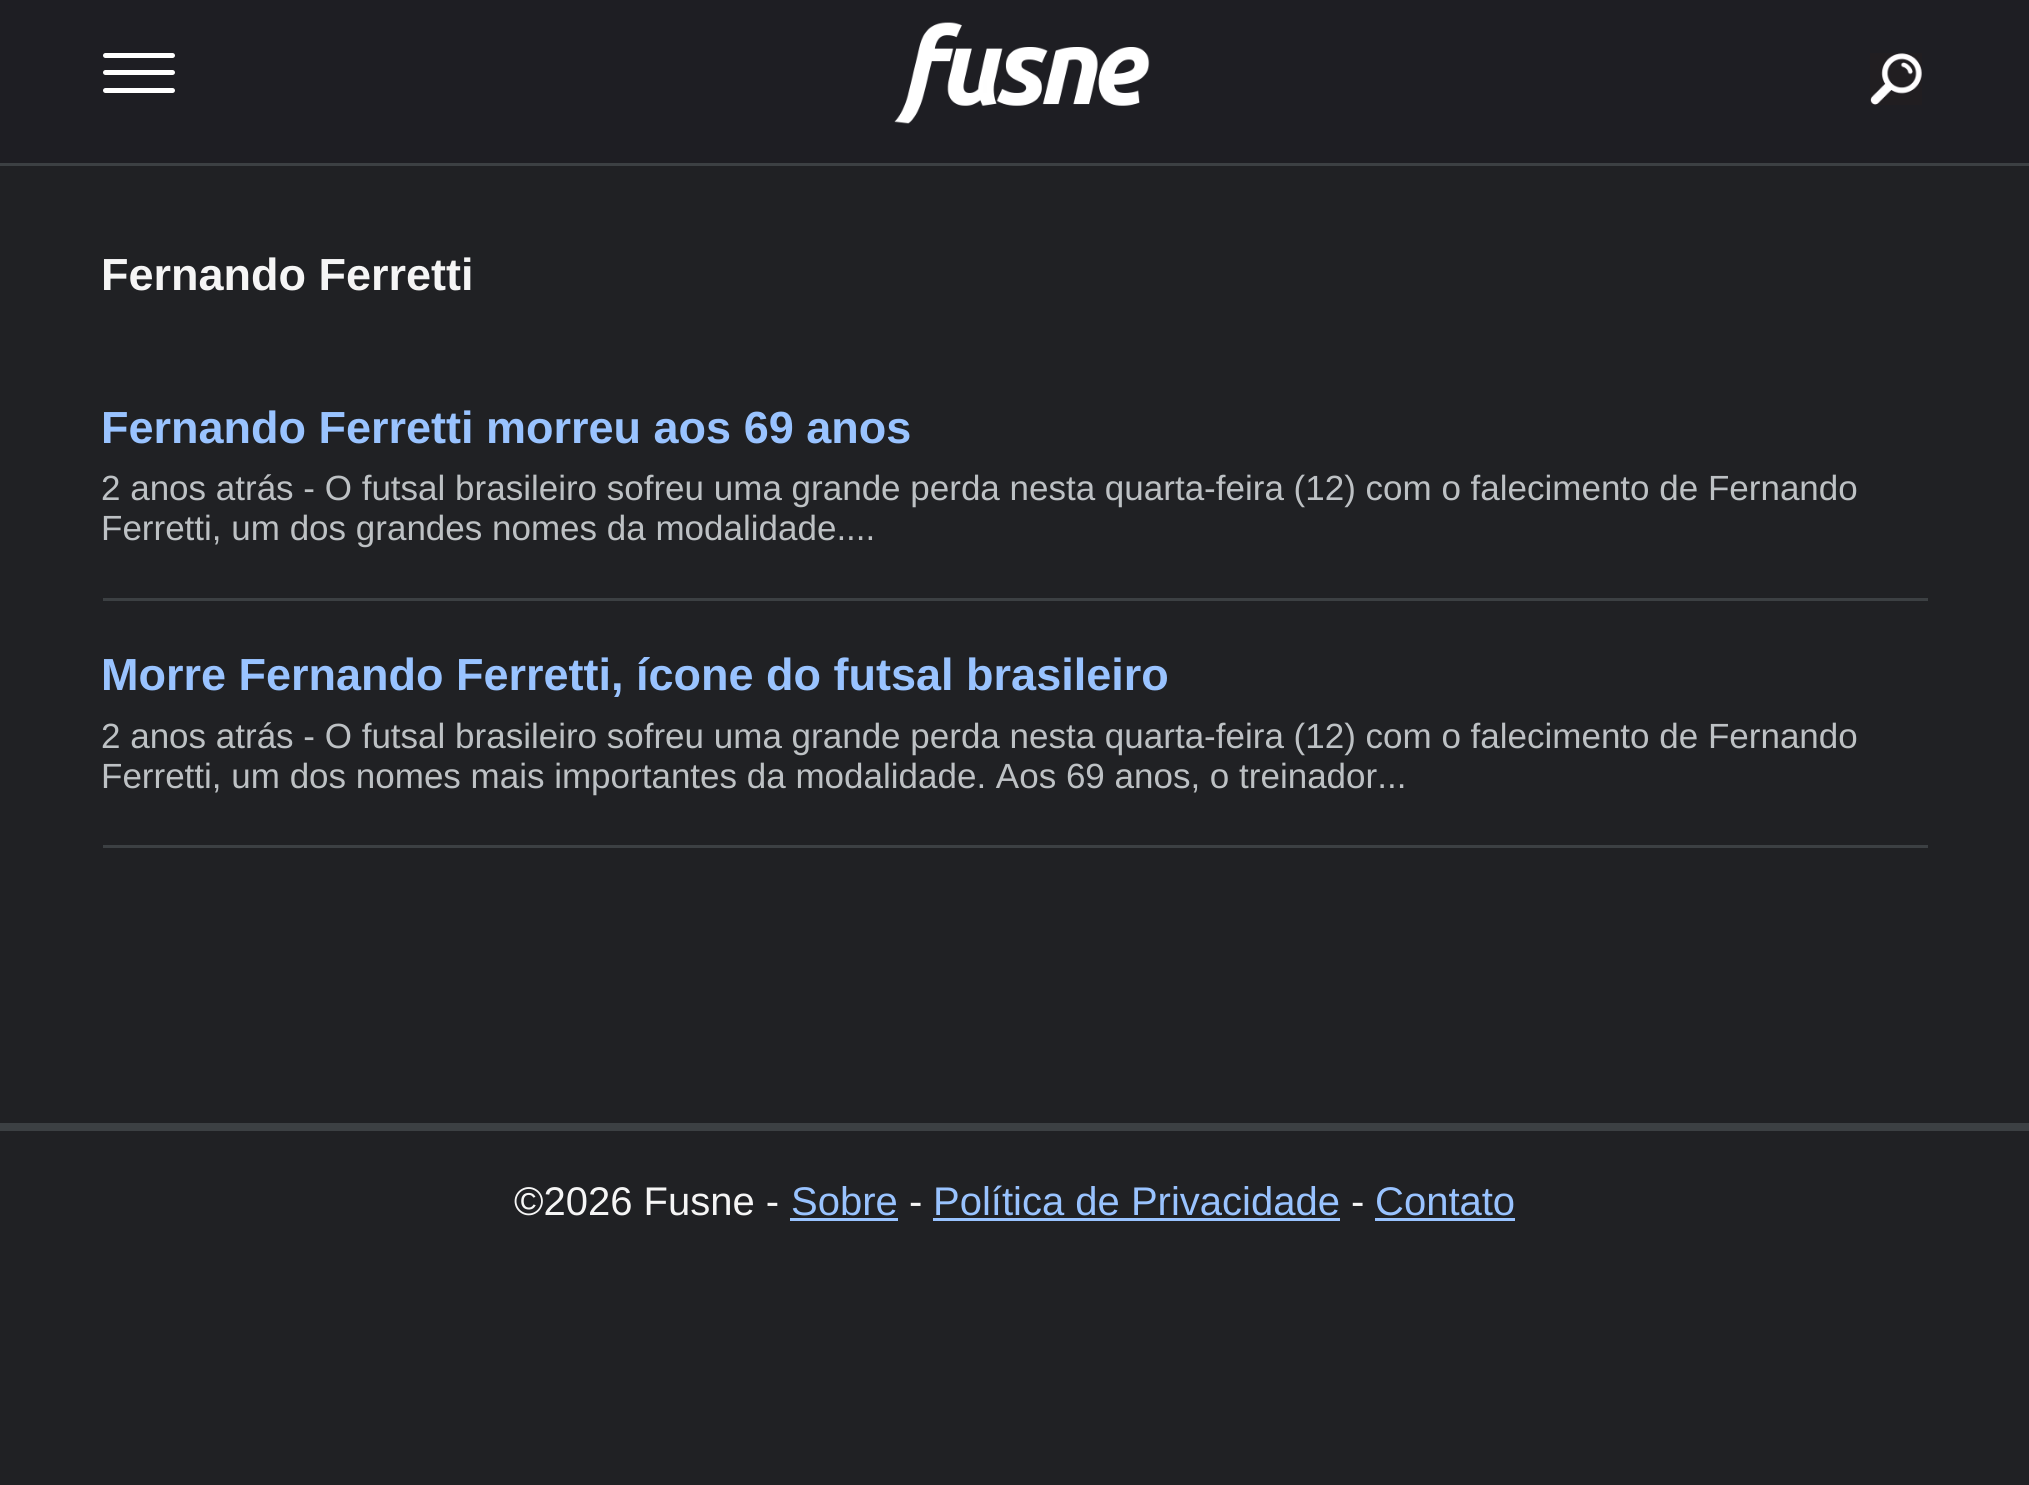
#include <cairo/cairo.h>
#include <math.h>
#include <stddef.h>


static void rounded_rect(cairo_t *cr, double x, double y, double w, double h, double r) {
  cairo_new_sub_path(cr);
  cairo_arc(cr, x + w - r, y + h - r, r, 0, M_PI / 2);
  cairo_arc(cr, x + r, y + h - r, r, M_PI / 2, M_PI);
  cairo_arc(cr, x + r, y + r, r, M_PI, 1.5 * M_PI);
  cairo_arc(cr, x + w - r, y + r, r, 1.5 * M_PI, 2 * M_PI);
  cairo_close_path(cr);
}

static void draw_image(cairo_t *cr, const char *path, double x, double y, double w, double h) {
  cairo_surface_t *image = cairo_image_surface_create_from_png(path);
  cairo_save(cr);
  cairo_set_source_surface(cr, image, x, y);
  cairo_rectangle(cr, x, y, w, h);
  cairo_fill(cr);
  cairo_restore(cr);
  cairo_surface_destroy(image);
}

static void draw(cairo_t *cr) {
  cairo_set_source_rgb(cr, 32 / 255.0, 33 / 255.0, 36 / 255.0);
  cairo_paint(cr);
  cairo_set_source_rgb(cr, 30 / 255.0, 30 / 255.0, 35 / 255.0);
  cairo_rectangle(cr, 0, 0, 2029, 163);
  cairo_fill(cr);
  cairo_set_source_rgb(cr, 60 / 255.0, 64 / 255.0, 67 / 255.0);
  cairo_rectangle(cr, 0, 163, 2029, 3);
  cairo_fill(cr);
  cairo_set_source_rgb(cr, 1, 1, 1);
  rounded_rect(cr, 103, 53, 72, 5, 2.5);
  cairo_fill(cr);
  rounded_rect(cr, 103, 70, 72, 5, 2.5);
  cairo_fill(cr);
  rounded_rect(cr, 103, 88, 72, 5, 2.5);
  cairo_fill(cr);
  draw_image(cr, "images/1.png", 894, 22, 256, 102);
  draw_image(cr, "images/2.png", 1870, 53, 52, 52);
  cairo_set_source_rgb(cr, 60 / 255.0, 64 / 255.0, 67 / 255.0);
  cairo_rectangle(cr, 103, 598, 1825, 3);
  cairo_fill(cr);
  cairo_rectangle(cr, 103, 845, 1825, 3);
  cairo_fill(cr);
  cairo_rectangle(cr, 0, 1123, 2029, 8);
  cairo_fill(cr);
  cairo_set_source_rgb(cr, 153 / 255.0, 195 / 255.0, 1);
  cairo_rectangle(cr, 790, 1218, 108, 3);
  cairo_fill(cr);
  cairo_rectangle(cr, 933, 1218, 407, 3);
  cairo_fill(cr);
  cairo_rectangle(cr, 1375, 1218, 140, 3);
  cairo_fill(cr);
  cairo_select_font_face(cr, "Liberation Sans", CAIRO_FONT_SLANT_NORMAL, CAIRO_FONT_WEIGHT_BOLD);
  cairo_set_font_size(cr, 45);
  cairo_set_source_rgb(cr, 245 / 255.0, 245 / 255.0, 245 / 255.0);
  cairo_move_to(cr, 101, 290);
  cairo_show_text(cr, "Fernando Ferretti");
  cairo_set_source_rgb(cr, 153 / 255.0, 195 / 255.0, 1);
  cairo_move_to(cr, 101, 443);
  cairo_show_text(cr, "Fernando Ferretti morreu aos 69 anos");
  cairo_select_font_face(cr, "Liberation Sans", CAIRO_FONT_SLANT_NORMAL, CAIRO_FONT_WEIGHT_NORMAL);
  cairo_set_font_size(cr, 35);
  cairo_set_source_rgb(cr, 189 / 255.0, 193 / 255.0, 196 / 255.0);
  cairo_move_to(cr, 101, 500);
  cairo_show_text(cr, "2 anos atrás - O futsal brasileiro sofreu uma grande perda nesta quarta-feira (12) com o falecimento de Fernando");
  cairo_move_to(cr, 101, 540);
  cairo_show_text(cr, "Ferretti, um dos grandes nomes da modalidade....");
  cairo_select_font_face(cr, "Liberation Sans", CAIRO_FONT_SLANT_NORMAL, CAIRO_FONT_WEIGHT_BOLD);
  cairo_set_font_size(cr, 45);
  cairo_set_source_rgb(cr, 153 / 255.0, 195 / 255.0, 1);
  cairo_move_to(cr, 101, 690);
  cairo_show_text(cr, "Morre Fernando Ferretti, ícone do futsal brasileiro");
  cairo_select_font_face(cr, "Liberation Sans", CAIRO_FONT_SLANT_NORMAL, CAIRO_FONT_WEIGHT_NORMAL);
  cairo_set_font_size(cr, 35);
  cairo_set_source_rgb(cr, 189 / 255.0, 193 / 255.0, 196 / 255.0);
  cairo_move_to(cr, 101, 748);
  cairo_show_text(cr, "2 anos atrás - O futsal brasileiro sofreu uma grande perda nesta quarta-feira (12) com o falecimento de Fernando");
  cairo_move_to(cr, 101, 788);
  cairo_show_text(cr, "Ferretti, um dos nomes mais importantes da modalidade. Aos 69 anos, o treinador...");
  cairo_set_font_size(cr, 40);
  cairo_set_source_rgb(cr, 245 / 255.0, 245 / 255.0, 245 / 255.0);
  cairo_move_to(cr, 514, 1215);
  cairo_show_text(cr, "©2026 Fusne -");
  cairo_set_source_rgb(cr, 153 / 255.0, 195 / 255.0, 1);
  cairo_move_to(cr, 791, 1215);
  cairo_show_text(cr, "Sobre");
  cairo_set_source_rgb(cr, 245 / 255.0, 245 / 255.0, 245 / 255.0);
  cairo_move_to(cr, 909, 1215);
  cairo_show_text(cr, "-");
  cairo_set_source_rgb(cr, 153 / 255.0, 195 / 255.0, 1);
  cairo_move_to(cr, 933, 1215);
  cairo_show_text(cr, "Política de Privacidade");
  cairo_set_source_rgb(cr, 245 / 255.0, 245 / 255.0, 245 / 255.0);
  cairo_move_to(cr, 1351, 1215);
  cairo_show_text(cr, "-");
  cairo_set_source_rgb(cr, 153 / 255.0, 195 / 255.0, 1);
  cairo_move_to(cr, 1375, 1215);
  cairo_show_text(cr, "Contato");
}

int main(void) {
  cairo_surface_t *surface = cairo_image_surface_create(CAIRO_FORMAT_RGB24, 2029, 1485);
  cairo_t *cr = cairo_create(surface);
  cairo_font_options_t *options = cairo_font_options_create();
  cairo_font_options_set_hint_metrics(options, CAIRO_HINT_METRICS_OFF);
  cairo_font_options_set_hint_style(options, CAIRO_HINT_STYLE_NONE);
  cairo_set_font_options(cr, options);
  cairo_set_miter_limit(cr, 4);
  draw(cr);
  cairo_surface_write_to_png(surface, "out.png");
  cairo_font_options_destroy(options);
  cairo_destroy(cr);
  cairo_surface_destroy(surface);
  return 0;
}
